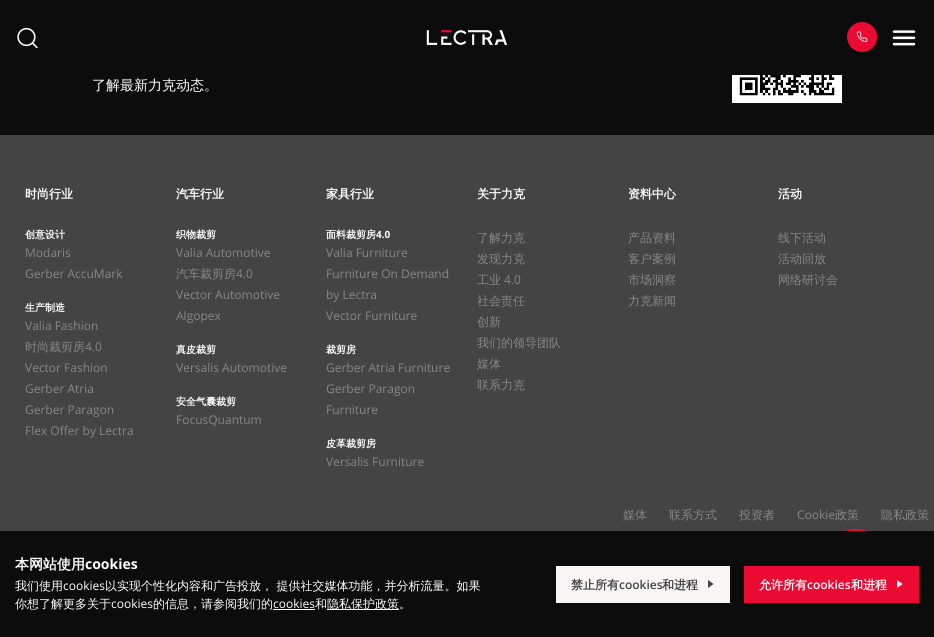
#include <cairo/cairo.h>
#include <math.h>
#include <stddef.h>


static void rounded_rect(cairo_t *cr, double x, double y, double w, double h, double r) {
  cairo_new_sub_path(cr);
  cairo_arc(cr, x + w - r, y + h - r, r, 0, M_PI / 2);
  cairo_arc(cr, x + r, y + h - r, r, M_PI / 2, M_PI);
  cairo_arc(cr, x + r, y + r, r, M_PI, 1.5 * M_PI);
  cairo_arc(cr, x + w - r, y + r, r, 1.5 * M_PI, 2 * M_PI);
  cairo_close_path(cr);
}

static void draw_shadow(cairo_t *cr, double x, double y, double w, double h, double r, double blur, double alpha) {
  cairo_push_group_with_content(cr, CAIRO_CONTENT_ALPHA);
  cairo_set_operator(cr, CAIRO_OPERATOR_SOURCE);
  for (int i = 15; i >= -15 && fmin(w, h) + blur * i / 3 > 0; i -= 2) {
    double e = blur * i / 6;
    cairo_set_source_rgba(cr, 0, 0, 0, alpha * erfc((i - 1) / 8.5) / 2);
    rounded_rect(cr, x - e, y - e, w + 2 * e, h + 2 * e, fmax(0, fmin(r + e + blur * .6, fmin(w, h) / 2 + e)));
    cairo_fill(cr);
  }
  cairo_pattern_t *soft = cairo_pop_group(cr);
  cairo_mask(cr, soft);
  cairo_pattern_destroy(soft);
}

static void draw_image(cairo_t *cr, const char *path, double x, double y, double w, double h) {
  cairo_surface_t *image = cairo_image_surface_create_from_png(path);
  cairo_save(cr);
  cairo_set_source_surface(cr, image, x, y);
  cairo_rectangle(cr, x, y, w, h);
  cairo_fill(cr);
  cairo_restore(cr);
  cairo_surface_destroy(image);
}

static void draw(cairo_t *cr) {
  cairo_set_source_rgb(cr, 13 / 255.0, 12 / 255.0, 12 / 255.0);
  cairo_paint(cr);
  draw_image(cr, "images/1.png", 17, 27, 21, 22);
  draw_image(cr, "images/2.png", 426, 30, 82, 15);
  cairo_set_source_rgb(cr, 235 / 255.0, 10 / 255.0, 50 / 255.0);
  cairo_arc(cr, 862, 37, 15, 0, 2 * M_PI);
  cairo_fill(cr);
  draw_image(cr, "images/3.png", 856, 31, 12, 11);
  draw_image(cr, "images/4.png", 892, 30, 24, 16);
  draw_image(cr, "images/5.png", 732, 75, 110, 28);
  cairo_set_source_rgb(cr, 68 / 255.0, 68 / 255.0, 68 / 255.0);
  cairo_rectangle(cr, 0, 135, 934, 396);
  cairo_fill(cr);
  cairo_set_source_rgb(cr, 74 / 255.0, 30 / 255.0, 41 / 255.0);
  draw_shadow(cr, 826, 533, 60, 60, 30, 4, 0.3);
  cairo_set_source_rgb(cr, 235 / 255.0, 10 / 255.0, 50 / 255.0);
  cairo_arc(cr, 856, 559, 30, 0, 2 * M_PI);
  cairo_fill(cr);
  cairo_set_source_rgb(cr, 13 / 255.0, 12 / 255.0, 12 / 255.0);
  cairo_rectangle(cr, 822, 531, 68, 66);
  cairo_fill(cr);
  cairo_set_source_rgb(cr, 1, 1, 1);
  cairo_rectangle(cr, 273, 609, 42, 1);
  cairo_fill(cr);
  cairo_rectangle(cr, 327, 609, 72, 1);
  cairo_fill(cr);
  cairo_set_source_rgb(cr, 248 / 255.0, 245 / 255.0, 242 / 255.0);
  cairo_rectangle(cr, 556, 566, 174, 37);
  cairo_fill(cr);
  cairo_set_source_rgb(cr, 68 / 255.0, 68 / 255.0, 68 / 255.0);
  cairo_new_path(cr);
  cairo_move_to(cr, 713.5, 584);
  cairo_line_to(cr, 708, 588);
  cairo_line_to(cr, 708, 580);
  cairo_close_path(cr);
  cairo_fill(cr);
  cairo_set_source_rgb(cr, 235 / 255.0, 10 / 255.0, 50 / 255.0);
  cairo_rectangle(cr, 744, 566, 175, 37);
  cairo_fill(cr);
  cairo_set_source_rgb(cr, 1, 1, 1);
  cairo_new_path(cr);
  cairo_move_to(cr, 902.5, 584);
  cairo_line_to(cr, 897, 588);
  cairo_line_to(cr, 897, 580);
  cairo_close_path(cr);
  cairo_fill(cr);
  cairo_select_font_face(cr, "WenQuanYi Zen Hei Medium", CAIRO_FONT_SLANT_NORMAL, CAIRO_FONT_WEIGHT_NORMAL);
  cairo_set_font_size(cr, 14);
  cairo_move_to(cr, 92, 90);
  cairo_show_text(cr, "了解最新力克动态。");
  cairo_select_font_face(cr, "WenQuanYi Zen Hei", CAIRO_FONT_SLANT_NORMAL, CAIRO_FONT_WEIGHT_BOLD);
  cairo_set_font_size(cr, 12);
  cairo_move_to(cr, 25, 198);
  cairo_show_text(cr, "时尚行业");
  cairo_set_font_size(cr, 10);
  cairo_move_to(cr, 25, 238);
  cairo_show_text(cr, "创意设计");
  cairo_select_font_face(cr, "Open Sans", CAIRO_FONT_SLANT_NORMAL, CAIRO_FONT_WEIGHT_NORMAL);
  cairo_set_font_size(cr, 12);
  cairo_set_source_rgb(cr, 137 / 255.0, 134 / 255.0, 132 / 255.0);
  cairo_move_to(cr, 25, 257);
  cairo_show_text(cr, "Modaris");
  cairo_move_to(cr, 25, 278);
  cairo_show_text(cr, "Gerber AccuMark");
  cairo_select_font_face(cr, "WenQuanYi Zen Hei", CAIRO_FONT_SLANT_NORMAL, CAIRO_FONT_WEIGHT_BOLD);
  cairo_set_font_size(cr, 10);
  cairo_set_source_rgb(cr, 1, 1, 1);
  cairo_move_to(cr, 25, 311);
  cairo_show_text(cr, "生产制造");
  cairo_select_font_face(cr, "Open Sans", CAIRO_FONT_SLANT_NORMAL, CAIRO_FONT_WEIGHT_NORMAL);
  cairo_set_font_size(cr, 12);
  cairo_set_source_rgb(cr, 137 / 255.0, 134 / 255.0, 132 / 255.0);
  cairo_move_to(cr, 25, 330);
  cairo_show_text(cr, "Valia Fashion");
  cairo_select_font_face(cr, "WenQuanYi Zen Hei Medium", CAIRO_FONT_SLANT_NORMAL, CAIRO_FONT_WEIGHT_NORMAL);
  cairo_move_to(cr, 25, 351);
  cairo_show_text(cr, "时尚裁剪房");
  cairo_select_font_face(cr, "Open Sans", CAIRO_FONT_SLANT_NORMAL, CAIRO_FONT_WEIGHT_NORMAL);
  cairo_move_to(cr, 85, 351);
  cairo_show_text(cr, "4.0");
  cairo_move_to(cr, 25, 372);
  cairo_show_text(cr, "Vector Fashion");
  cairo_move_to(cr, 25, 393);
  cairo_show_text(cr, "Gerber Atria");
  cairo_move_to(cr, 25, 414);
  cairo_show_text(cr, "Gerber Paragon");
  cairo_move_to(cr, 25, 435);
  cairo_show_text(cr, "Flex Offer by Lectra");
  cairo_select_font_face(cr, "WenQuanYi Zen Hei", CAIRO_FONT_SLANT_NORMAL, CAIRO_FONT_WEIGHT_BOLD);
  cairo_set_source_rgb(cr, 1, 1, 1);
  cairo_move_to(cr, 176, 198);
  cairo_show_text(cr, "汽车行业");
  cairo_set_font_size(cr, 10);
  cairo_move_to(cr, 176, 238);
  cairo_show_text(cr, "织物裁剪");
  cairo_select_font_face(cr, "Open Sans", CAIRO_FONT_SLANT_NORMAL, CAIRO_FONT_WEIGHT_NORMAL);
  cairo_set_font_size(cr, 12);
  cairo_set_source_rgb(cr, 137 / 255.0, 134 / 255.0, 132 / 255.0);
  cairo_move_to(cr, 176, 257);
  cairo_show_text(cr, "Valia Automotive");
  cairo_select_font_face(cr, "WenQuanYi Zen Hei Medium", CAIRO_FONT_SLANT_NORMAL, CAIRO_FONT_WEIGHT_NORMAL);
  cairo_move_to(cr, 176, 278);
  cairo_show_text(cr, "汽车裁剪房");
  cairo_select_font_face(cr, "Open Sans", CAIRO_FONT_SLANT_NORMAL, CAIRO_FONT_WEIGHT_NORMAL);
  cairo_move_to(cr, 236, 278);
  cairo_show_text(cr, "4.0");
  cairo_move_to(cr, 176, 299);
  cairo_show_text(cr, "Vector Automotive");
  cairo_move_to(cr, 176, 320);
  cairo_show_text(cr, "Algopex");
  cairo_select_font_face(cr, "WenQuanYi Zen Hei", CAIRO_FONT_SLANT_NORMAL, CAIRO_FONT_WEIGHT_BOLD);
  cairo_set_font_size(cr, 10);
  cairo_set_source_rgb(cr, 1, 1, 1);
  cairo_move_to(cr, 176, 353);
  cairo_show_text(cr, "真皮裁剪");
  cairo_select_font_face(cr, "Open Sans", CAIRO_FONT_SLANT_NORMAL, CAIRO_FONT_WEIGHT_NORMAL);
  cairo_set_font_size(cr, 12);
  cairo_set_source_rgb(cr, 137 / 255.0, 134 / 255.0, 132 / 255.0);
  cairo_move_to(cr, 176, 372);
  cairo_show_text(cr, "Versalis Automotive");
  cairo_select_font_face(cr, "WenQuanYi Zen Hei", CAIRO_FONT_SLANT_NORMAL, CAIRO_FONT_WEIGHT_BOLD);
  cairo_set_font_size(cr, 10);
  cairo_set_source_rgb(cr, 1, 1, 1);
  cairo_move_to(cr, 176, 405);
  cairo_show_text(cr, "安全气囊裁剪");
  cairo_select_font_face(cr, "Open Sans", CAIRO_FONT_SLANT_NORMAL, CAIRO_FONT_WEIGHT_NORMAL);
  cairo_set_font_size(cr, 12);
  cairo_set_source_rgb(cr, 137 / 255.0, 134 / 255.0, 132 / 255.0);
  cairo_move_to(cr, 176, 424);
  cairo_show_text(cr, "FocusQuantum");
  cairo_select_font_face(cr, "WenQuanYi Zen Hei", CAIRO_FONT_SLANT_NORMAL, CAIRO_FONT_WEIGHT_BOLD);
  cairo_set_source_rgb(cr, 1, 1, 1);
  cairo_move_to(cr, 326, 198);
  cairo_show_text(cr, "家具行业");
  cairo_set_font_size(cr, 10);
  cairo_move_to(cr, 326, 238);
  cairo_show_text(cr, "面料裁剪房");
  cairo_select_font_face(cr, "Open Sans", CAIRO_FONT_SLANT_NORMAL, CAIRO_FONT_WEIGHT_BOLD);
  cairo_move_to(cr, 376, 238);
  cairo_show_text(cr, "4.0");
  cairo_select_font_face(cr, "Open Sans", CAIRO_FONT_SLANT_NORMAL, CAIRO_FONT_WEIGHT_NORMAL);
  cairo_set_font_size(cr, 12);
  cairo_set_source_rgb(cr, 137 / 255.0, 134 / 255.0, 132 / 255.0);
  cairo_move_to(cr, 326, 257);
  cairo_show_text(cr, "Valia Furniture");
  cairo_move_to(cr, 326, 278);
  cairo_show_text(cr, "Furniture On Demand");
  cairo_move_to(cr, 326, 299);
  cairo_show_text(cr, "by Lectra");
  cairo_move_to(cr, 326, 320);
  cairo_show_text(cr, "Vector Furniture");
  cairo_select_font_face(cr, "WenQuanYi Zen Hei", CAIRO_FONT_SLANT_NORMAL, CAIRO_FONT_WEIGHT_BOLD);
  cairo_set_font_size(cr, 10);
  cairo_set_source_rgb(cr, 1, 1, 1);
  cairo_move_to(cr, 326, 353);
  cairo_show_text(cr, "裁剪房");
  cairo_select_font_face(cr, "Open Sans", CAIRO_FONT_SLANT_NORMAL, CAIRO_FONT_WEIGHT_NORMAL);
  cairo_set_font_size(cr, 12);
  cairo_set_source_rgb(cr, 137 / 255.0, 134 / 255.0, 132 / 255.0);
  cairo_move_to(cr, 326, 372);
  cairo_show_text(cr, "Gerber Atria Furniture");
  cairo_move_to(cr, 326, 393);
  cairo_show_text(cr, "Gerber Paragon");
  cairo_move_to(cr, 326, 414);
  cairo_show_text(cr, "Furniture");
  cairo_select_font_face(cr, "WenQuanYi Zen Hei", CAIRO_FONT_SLANT_NORMAL, CAIRO_FONT_WEIGHT_BOLD);
  cairo_set_font_size(cr, 10);
  cairo_set_source_rgb(cr, 1, 1, 1);
  cairo_move_to(cr, 326, 447);
  cairo_show_text(cr, "皮革裁剪房");
  cairo_select_font_face(cr, "Open Sans", CAIRO_FONT_SLANT_NORMAL, CAIRO_FONT_WEIGHT_NORMAL);
  cairo_set_font_size(cr, 12);
  cairo_set_source_rgb(cr, 137 / 255.0, 134 / 255.0, 132 / 255.0);
  cairo_move_to(cr, 326, 466);
  cairo_show_text(cr, "Versalis Furniture");
  cairo_select_font_face(cr, "WenQuanYi Zen Hei", CAIRO_FONT_SLANT_NORMAL, CAIRO_FONT_WEIGHT_BOLD);
  cairo_set_source_rgb(cr, 1, 1, 1);
  cairo_move_to(cr, 477, 198);
  cairo_show_text(cr, "关于力克");
  cairo_select_font_face(cr, "WenQuanYi Zen Hei Medium", CAIRO_FONT_SLANT_NORMAL, CAIRO_FONT_WEIGHT_NORMAL);
  cairo_set_source_rgb(cr, 137 / 255.0, 134 / 255.0, 132 / 255.0);
  cairo_move_to(cr, 477, 242);
  cairo_show_text(cr, "了解力克");
  cairo_move_to(cr, 477, 263);
  cairo_show_text(cr, "发现力克");
  cairo_move_to(cr, 477, 284);
  cairo_show_text(cr, "工业");
  cairo_select_font_face(cr, "Open Sans", CAIRO_FONT_SLANT_NORMAL, CAIRO_FONT_WEIGHT_NORMAL);
  cairo_move_to(cr, 504, 284);
  cairo_show_text(cr, "4.0");
  cairo_select_font_face(cr, "WenQuanYi Zen Hei Medium", CAIRO_FONT_SLANT_NORMAL, CAIRO_FONT_WEIGHT_NORMAL);
  cairo_move_to(cr, 477, 305);
  cairo_show_text(cr, "社会责任");
  cairo_move_to(cr, 477, 326);
  cairo_show_text(cr, "创新");
  cairo_move_to(cr, 477, 347);
  cairo_show_text(cr, "我们的领导团队");
  cairo_move_to(cr, 477, 368);
  cairo_show_text(cr, "媒体");
  cairo_move_to(cr, 477, 389);
  cairo_show_text(cr, "联系力克");
  cairo_select_font_face(cr, "WenQuanYi Zen Hei", CAIRO_FONT_SLANT_NORMAL, CAIRO_FONT_WEIGHT_BOLD);
  cairo_set_source_rgb(cr, 1, 1, 1);
  cairo_move_to(cr, 628, 198);
  cairo_show_text(cr, "资料中心");
  cairo_select_font_face(cr, "WenQuanYi Zen Hei Medium", CAIRO_FONT_SLANT_NORMAL, CAIRO_FONT_WEIGHT_NORMAL);
  cairo_set_source_rgb(cr, 137 / 255.0, 134 / 255.0, 132 / 255.0);
  cairo_move_to(cr, 628, 242);
  cairo_show_text(cr, "产品资料");
  cairo_move_to(cr, 628, 263);
  cairo_show_text(cr, "客户案例");
  cairo_move_to(cr, 628, 284);
  cairo_show_text(cr, "市场洞察");
  cairo_move_to(cr, 628, 305);
  cairo_show_text(cr, "力克新闻");
  cairo_select_font_face(cr, "WenQuanYi Zen Hei", CAIRO_FONT_SLANT_NORMAL, CAIRO_FONT_WEIGHT_BOLD);
  cairo_set_source_rgb(cr, 1, 1, 1);
  cairo_move_to(cr, 778, 198);
  cairo_show_text(cr, "活动");
  cairo_select_font_face(cr, "WenQuanYi Zen Hei Medium", CAIRO_FONT_SLANT_NORMAL, CAIRO_FONT_WEIGHT_NORMAL);
  cairo_set_source_rgb(cr, 137 / 255.0, 134 / 255.0, 132 / 255.0);
  cairo_move_to(cr, 778, 242);
  cairo_show_text(cr, "线下活动");
  cairo_move_to(cr, 778, 263);
  cairo_show_text(cr, "活动回放");
  cairo_move_to(cr, 778, 284);
  cairo_show_text(cr, "网络研讨会");
  cairo_move_to(cr, 623, 519);
  cairo_show_text(cr, "媒体");
  cairo_move_to(cr, 669, 519);
  cairo_show_text(cr, "联系方式");
  cairo_move_to(cr, 739, 519);
  cairo_show_text(cr, "投资者");
  cairo_select_font_face(cr, "Open Sans", CAIRO_FONT_SLANT_NORMAL, CAIRO_FONT_WEIGHT_NORMAL);
  cairo_move_to(cr, 797, 519);
  cairo_show_text(cr, "Cookie");
  cairo_select_font_face(cr, "WenQuanYi Zen Hei Medium", CAIRO_FONT_SLANT_NORMAL, CAIRO_FONT_WEIGHT_NORMAL);
  cairo_move_to(cr, 835, 519);
  cairo_show_text(cr, "政策");
  cairo_move_to(cr, 881, 519);
  cairo_show_text(cr, "隐私政策");
  cairo_select_font_face(cr, "WenQuanYi Zen Hei", CAIRO_FONT_SLANT_NORMAL, CAIRO_FONT_WEIGHT_BOLD);
  cairo_set_font_size(cr, 14);
  cairo_set_source_rgb(cr, 1, 1, 1);
  cairo_move_to(cr, 15, 569);
  cairo_show_text(cr, "本网站使用");
  cairo_select_font_face(cr, "Open Sans", CAIRO_FONT_SLANT_NORMAL, CAIRO_FONT_WEIGHT_BOLD);
  cairo_move_to(cr, 85, 569);
  cairo_show_text(cr, "cookies");
  cairo_select_font_face(cr, "WenQuanYi Zen Hei Medium", CAIRO_FONT_SLANT_NORMAL, CAIRO_FONT_WEIGHT_NORMAL);
  cairo_set_font_size(cr, 12);
  cairo_move_to(cr, 15, 590);
  cairo_show_text(cr, "我们使用");
  cairo_select_font_face(cr, "Open Sans", CAIRO_FONT_SLANT_NORMAL, CAIRO_FONT_WEIGHT_NORMAL);
  cairo_move_to(cr, 63, 590);
  cairo_show_text(cr, "cookies");
  cairo_select_font_face(cr, "WenQuanYi Zen Hei Medium", CAIRO_FONT_SLANT_NORMAL, CAIRO_FONT_WEIGHT_NORMAL);
  cairo_move_to(cr, 105, 590);
  cairo_show_text(cr, "以实现个性化内容和广告投放， 提供社交媒体功能，并分析流量。如果");
  cairo_move_to(cr, 15, 608);
  cairo_show_text(cr, "你想了解更多关于");
  cairo_select_font_face(cr, "Open Sans", CAIRO_FONT_SLANT_NORMAL, CAIRO_FONT_WEIGHT_NORMAL);
  cairo_move_to(cr, 111, 608);
  cairo_show_text(cr, "cookies");
  cairo_select_font_face(cr, "WenQuanYi Zen Hei Medium", CAIRO_FONT_SLANT_NORMAL, CAIRO_FONT_WEIGHT_NORMAL);
  cairo_move_to(cr, 153, 608);
  cairo_show_text(cr, "的信息，请参阅我们的");
  cairo_select_font_face(cr, "Open Sans", CAIRO_FONT_SLANT_NORMAL, CAIRO_FONT_WEIGHT_NORMAL);
  cairo_move_to(cr, 273, 608);
  cairo_show_text(cr, "cookies");
  cairo_select_font_face(cr, "WenQuanYi Zen Hei Medium", CAIRO_FONT_SLANT_NORMAL, CAIRO_FONT_WEIGHT_NORMAL);
  cairo_move_to(cr, 315, 608);
  cairo_show_text(cr, "和");
  cairo_move_to(cr, 327, 608);
  cairo_show_text(cr, "隐私保护政策。");
  cairo_select_font_face(cr, "WenQuanYi Zen Hei", CAIRO_FONT_SLANT_NORMAL, CAIRO_FONT_WEIGHT_BOLD);
  cairo_set_source_rgb(cr, 68 / 255.0, 68 / 255.0, 68 / 255.0);
  cairo_move_to(cr, 571, 589);
  cairo_show_text(cr, "禁止所有");
  cairo_select_font_face(cr, "Open Sans SemiBold", CAIRO_FONT_SLANT_NORMAL, CAIRO_FONT_WEIGHT_NORMAL);
  cairo_move_to(cr, 619, 589);
  cairo_show_text(cr, "cookies");
  cairo_select_font_face(cr, "WenQuanYi Zen Hei", CAIRO_FONT_SLANT_NORMAL, CAIRO_FONT_WEIGHT_BOLD);
  cairo_move_to(cr, 662, 589);
  cairo_show_text(cr, "和进程");
  cairo_set_source_rgb(cr, 1, 1, 1);
  cairo_move_to(cr, 759, 589);
  cairo_show_text(cr, "允许所有");
  cairo_select_font_face(cr, "Open Sans SemiBold", CAIRO_FONT_SLANT_NORMAL, CAIRO_FONT_WEIGHT_NORMAL);
  cairo_move_to(cr, 807, 589);
  cairo_show_text(cr, "cookies");
  cairo_select_font_face(cr, "WenQuanYi Zen Hei", CAIRO_FONT_SLANT_NORMAL, CAIRO_FONT_WEIGHT_BOLD);
  cairo_move_to(cr, 851, 589);
  cairo_show_text(cr, "和进程");
}

int main(void) {
  cairo_surface_t *surface = cairo_image_surface_create(CAIRO_FORMAT_RGB24, 934, 637);
  cairo_t *cr = cairo_create(surface);
  cairo_font_options_t *options = cairo_font_options_create();
  cairo_font_options_set_hint_metrics(options, CAIRO_HINT_METRICS_OFF);
  cairo_font_options_set_hint_style(options, CAIRO_HINT_STYLE_NONE);
  cairo_set_font_options(cr, options);
  cairo_set_miter_limit(cr, 4);
  draw(cr);
  cairo_surface_write_to_png(surface, "out.png");
  cairo_font_options_destroy(options);
  cairo_destroy(cr);
  cairo_surface_destroy(surface);
  return 0;
}
